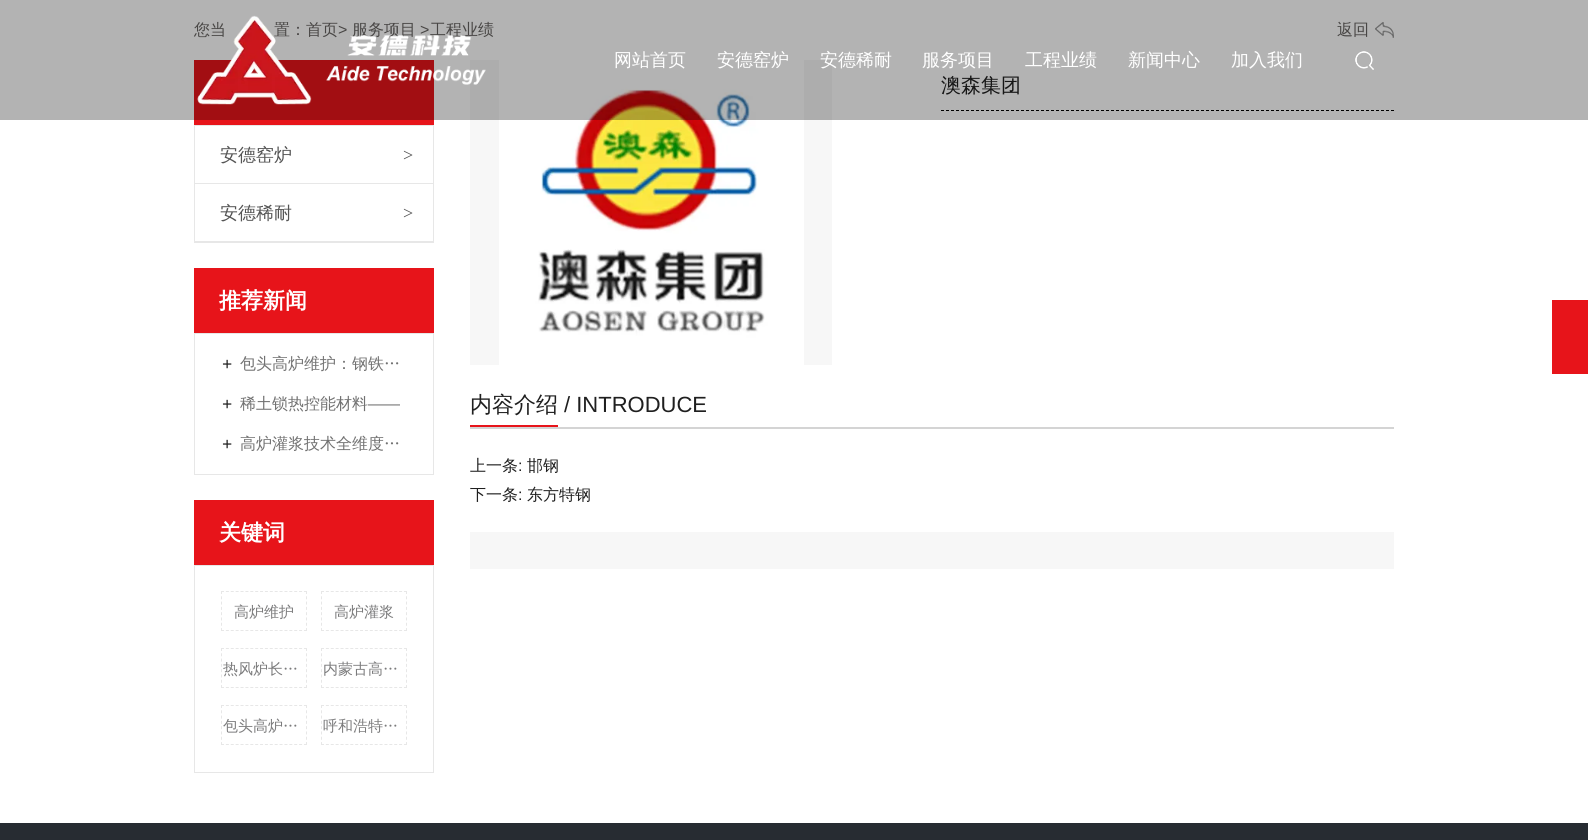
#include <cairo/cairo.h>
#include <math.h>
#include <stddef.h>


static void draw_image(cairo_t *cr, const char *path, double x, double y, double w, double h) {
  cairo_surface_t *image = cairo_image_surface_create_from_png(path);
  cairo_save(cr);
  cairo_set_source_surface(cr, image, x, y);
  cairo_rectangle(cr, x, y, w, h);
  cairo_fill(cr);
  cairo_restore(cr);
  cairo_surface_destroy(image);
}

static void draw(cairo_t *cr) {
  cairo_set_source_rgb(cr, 1, 1, 1);
  cairo_paint(cr);
  draw_image(cr, "images/1.png", 1375, 22, 19, 16);
  cairo_set_source_rgb(cr, 231 / 255.0, 20 / 255.0, 26 / 255.0);
  cairo_rectangle(cr, 194, 60, 240, 65);
  cairo_fill(cr);
  cairo_rectangle(cr, 194.5, 125.5, 239, 117);
  cairo_set_source_rgb(cr, 231 / 255.0, 231 / 255.0, 231 / 255.0);
  cairo_set_line_width(cr, 1);
  cairo_stroke(cr);
  cairo_rectangle(cr, 195, 183, 238, 1);
  cairo_fill(cr);
  cairo_rectangle(cr, 195, 241, 238, 1);
  cairo_fill(cr);
  cairo_set_source_rgb(cr, 231 / 255.0, 20 / 255.0, 26 / 255.0);
  cairo_rectangle(cr, 194, 268, 240, 65);
  cairo_fill(cr);
  cairo_rectangle(cr, 194.5, 333.5, 239, 141);
  cairo_set_source_rgb(cr, 231 / 255.0, 231 / 255.0, 231 / 255.0);
  cairo_stroke(cr);
  cairo_set_source_rgb(cr, 231 / 255.0, 20 / 255.0, 26 / 255.0);
  cairo_rectangle(cr, 194, 500, 240, 65);
  cairo_fill(cr);
  cairo_rectangle(cr, 194.5, 565.5, 239, 207);
  cairo_set_source_rgb(cr, 231 / 255.0, 231 / 255.0, 231 / 255.0);
  cairo_stroke(cr);
  cairo_new_path(cr);
  cairo_move_to(cr, 221, 591.5);
  cairo_line_to(cr, 307, 591.5);
  cairo_set_dash(cr, (double[]){3, 1.88}, 2, 0);
  cairo_stroke(cr);
  cairo_new_path(cr);
  cairo_move_to(cr, 306.5, 591);
  cairo_line_to(cr, 306.5, 631);
  cairo_set_dash(cr, (double[]){3, 2.29}, 2, 0);
  cairo_stroke(cr);
  cairo_new_path(cr);
  cairo_move_to(cr, 221, 630.5);
  cairo_line_to(cr, 307, 630.5);
  cairo_set_dash(cr, (double[]){3, 1.88}, 2, 0);
  cairo_stroke(cr);
  cairo_new_path(cr);
  cairo_move_to(cr, 221.5, 591);
  cairo_line_to(cr, 221.5, 631);
  cairo_set_dash(cr, (double[]){3, 2.29}, 2, 0);
  cairo_stroke(cr);
  cairo_new_path(cr);
  cairo_move_to(cr, 321, 591.5);
  cairo_line_to(cr, 407, 591.5);
  cairo_set_dash(cr, (double[]){3, 1.88}, 2, 0);
  cairo_stroke(cr);
  cairo_new_path(cr);
  cairo_move_to(cr, 406.5, 591);
  cairo_line_to(cr, 406.5, 631);
  cairo_set_dash(cr, (double[]){3, 2.29}, 2, 0);
  cairo_stroke(cr);
  cairo_new_path(cr);
  cairo_move_to(cr, 321, 630.5);
  cairo_line_to(cr, 407, 630.5);
  cairo_set_dash(cr, (double[]){3, 1.88}, 2, 0);
  cairo_stroke(cr);
  cairo_new_path(cr);
  cairo_move_to(cr, 321.5, 591);
  cairo_line_to(cr, 321.5, 631);
  cairo_set_dash(cr, (double[]){3, 2.29}, 2, 0);
  cairo_stroke(cr);
  cairo_new_path(cr);
  cairo_move_to(cr, 221, 648.5);
  cairo_line_to(cr, 307, 648.5);
  cairo_set_dash(cr, (double[]){3, 1.88}, 2, 0);
  cairo_stroke(cr);
  cairo_new_path(cr);
  cairo_move_to(cr, 306.5, 648);
  cairo_line_to(cr, 306.5, 688);
  cairo_set_dash(cr, (double[]){3, 2.29}, 2, 0);
  cairo_stroke(cr);
  cairo_new_path(cr);
  cairo_move_to(cr, 221, 687.5);
  cairo_line_to(cr, 307, 687.5);
  cairo_set_dash(cr, (double[]){3, 1.88}, 2, 0);
  cairo_stroke(cr);
  cairo_new_path(cr);
  cairo_move_to(cr, 221.5, 648);
  cairo_line_to(cr, 221.5, 688);
  cairo_set_dash(cr, (double[]){3, 2.29}, 2, 0);
  cairo_stroke(cr);
  cairo_new_path(cr);
  cairo_move_to(cr, 321, 648.5);
  cairo_line_to(cr, 407, 648.5);
  cairo_set_dash(cr, (double[]){3, 1.88}, 2, 0);
  cairo_stroke(cr);
  cairo_new_path(cr);
  cairo_move_to(cr, 406.5, 648);
  cairo_line_to(cr, 406.5, 688);
  cairo_set_dash(cr, (double[]){3, 2.29}, 2, 0);
  cairo_stroke(cr);
  cairo_new_path(cr);
  cairo_move_to(cr, 321, 687.5);
  cairo_line_to(cr, 407, 687.5);
  cairo_set_dash(cr, (double[]){3, 1.88}, 2, 0);
  cairo_stroke(cr);
  cairo_new_path(cr);
  cairo_move_to(cr, 321.5, 648);
  cairo_line_to(cr, 321.5, 688);
  cairo_set_dash(cr, (double[]){3, 2.29}, 2, 0);
  cairo_stroke(cr);
  cairo_new_path(cr);
  cairo_move_to(cr, 221, 705.5);
  cairo_line_to(cr, 307, 705.5);
  cairo_set_dash(cr, (double[]){3, 1.88}, 2, 0);
  cairo_stroke(cr);
  cairo_new_path(cr);
  cairo_move_to(cr, 306.5, 705);
  cairo_line_to(cr, 306.5, 745);
  cairo_set_dash(cr, (double[]){3, 2.29}, 2, 0);
  cairo_stroke(cr);
  cairo_new_path(cr);
  cairo_move_to(cr, 221, 744.5);
  cairo_line_to(cr, 307, 744.5);
  cairo_set_dash(cr, (double[]){3, 1.88}, 2, 0);
  cairo_stroke(cr);
  cairo_new_path(cr);
  cairo_move_to(cr, 221.5, 705);
  cairo_line_to(cr, 221.5, 745);
  cairo_set_dash(cr, (double[]){3, 2.29}, 2, 0);
  cairo_stroke(cr);
  cairo_new_path(cr);
  cairo_move_to(cr, 321, 705.5);
  cairo_line_to(cr, 407, 705.5);
  cairo_set_dash(cr, (double[]){3, 1.88}, 2, 0);
  cairo_stroke(cr);
  cairo_new_path(cr);
  cairo_move_to(cr, 406.5, 705);
  cairo_line_to(cr, 406.5, 745);
  cairo_set_dash(cr, (double[]){3, 2.29}, 2, 0);
  cairo_stroke(cr);
  cairo_new_path(cr);
  cairo_move_to(cr, 321, 744.5);
  cairo_line_to(cr, 407, 744.5);
  cairo_set_dash(cr, (double[]){3, 1.88}, 2, 0);
  cairo_stroke(cr);
  cairo_new_path(cr);
  cairo_move_to(cr, 321.5, 705);
  cairo_line_to(cr, 321.5, 745);
  cairo_set_dash(cr, (double[]){3, 2.29}, 2, 0);
  cairo_stroke(cr);
  cairo_set_source_rgb(cr, 247 / 255.0, 247 / 255.0, 247 / 255.0);
  cairo_rectangle(cr, 470, 60, 362, 305);
  cairo_fill(cr);
  draw_image(cr, "images/4.png", 499, 60, 305, 305);
  cairo_new_path(cr);
  cairo_move_to(cr, 941, 110.5);
  cairo_line_to(cr, 1394, 110.5);
  cairo_set_source_rgb(cr, 0, 0, 0);
  cairo_set_dash(cr, (double[]){3, 2}, 2, 0);
  cairo_stroke(cr);
  cairo_set_source_rgb(cr, 212 / 255.0, 212 / 255.0, 212 / 255.0);
  cairo_rectangle(cr, 470, 427, 924, 2);
  cairo_fill(cr);
  cairo_set_source_rgb(cr, 231 / 255.0, 20 / 255.0, 26 / 255.0);
  cairo_rectangle(cr, 470, 425, 88, 2);
  cairo_fill(cr);
  cairo_set_source_rgb(cr, 247 / 255.0, 247 / 255.0, 247 / 255.0);
  cairo_rectangle(cr, 470, 532, 924, 37);
  cairo_fill(cr);
  cairo_set_source_rgb(cr, 39 / 255.0, 44 / 255.0, 50 / 255.0);
  cairo_rectangle(cr, 0, 823, 1588, 17);
  cairo_fill(cr);
  cairo_set_source_rgb(cr, 231 / 255.0, 20 / 255.0, 26 / 255.0);
  cairo_rectangle(cr, 1552, 300, 36, 74);
  cairo_fill(cr);
  cairo_select_font_face(cr, "WenQuanYi Zen Hei Medium", CAIRO_FONT_SLANT_NORMAL, CAIRO_FONT_WEIGHT_NORMAL);
  cairo_set_font_size(cr, 16);
  cairo_set_source_rgb(cr, 103 / 255.0, 100 / 255.0, 98 / 255.0);
  cairo_move_to(cr, 194, 35);
  cairo_show_text(cr, "您当");
  cairo_move_to(cr, 274, 35);
  cairo_show_text(cr, "置：首页");
  cairo_select_font_face(cr, "Liberation Sans", CAIRO_FONT_SLANT_NORMAL, CAIRO_FONT_WEIGHT_NORMAL);
  cairo_move_to(cr, 338, 35);
  cairo_show_text(cr, ">");
  cairo_select_font_face(cr, "WenQuanYi Zen Hei Medium", CAIRO_FONT_SLANT_NORMAL, CAIRO_FONT_WEIGHT_NORMAL);
  cairo_move_to(cr, 352, 35);
  cairo_show_text(cr, "服务项目");
  cairo_select_font_face(cr, "Liberation Sans", CAIRO_FONT_SLANT_NORMAL, CAIRO_FONT_WEIGHT_NORMAL);
  cairo_move_to(cr, 420, 35);
  cairo_show_text(cr, ">");
  cairo_select_font_face(cr, "WenQuanYi Zen Hei Medium", CAIRO_FONT_SLANT_NORMAL, CAIRO_FONT_WEIGHT_NORMAL);
  cairo_move_to(cr, 430, 35);
  cairo_show_text(cr, "工程业绩");
  cairo_move_to(cr, 1337, 35);
  cairo_show_text(cr, "返回");
  cairo_set_font_size(cr, 18);
  cairo_set_source_rgb(cr, 84 / 255.0, 84 / 255.0, 84 / 255.0);
  cairo_move_to(cr, 220, 161);
  cairo_show_text(cr, "安德窑炉");
  cairo_select_font_face(cr, "Liberation Serif", CAIRO_FONT_SLANT_NORMAL, CAIRO_FONT_WEIGHT_NORMAL);
  cairo_move_to(cr, 403, 161);
  cairo_show_text(cr, ">");
  cairo_select_font_face(cr, "WenQuanYi Zen Hei Medium", CAIRO_FONT_SLANT_NORMAL, CAIRO_FONT_WEIGHT_NORMAL);
  cairo_move_to(cr, 220, 219);
  cairo_show_text(cr, "安德稀耐");
  cairo_select_font_face(cr, "Liberation Serif", CAIRO_FONT_SLANT_NORMAL, CAIRO_FONT_WEIGHT_NORMAL);
  cairo_move_to(cr, 403, 219);
  cairo_show_text(cr, ">");
  cairo_select_font_face(cr, "WenQuanYi Zen Hei", CAIRO_FONT_SLANT_NORMAL, CAIRO_FONT_WEIGHT_BOLD);
  cairo_set_font_size(cr, 22);
  cairo_set_source_rgb(cr, 1, 1, 1);
  cairo_move_to(cr, 219, 308);
  cairo_show_text(cr, "推荐新闻");
  cairo_select_font_face(cr, "Liberation Serif", CAIRO_FONT_SLANT_NORMAL, CAIRO_FONT_WEIGHT_BOLD);
  cairo_set_font_size(cr, 18);
  cairo_set_source_rgb(cr, 31 / 255.0, 31 / 255.0, 31 / 255.0);
  cairo_move_to(cr, 222, 370);
  cairo_show_text(cr, "+");
  cairo_select_font_face(cr, "WenQuanYi Zen Hei Medium", CAIRO_FONT_SLANT_NORMAL, CAIRO_FONT_WEIGHT_NORMAL);
  cairo_set_font_size(cr, 16);
  cairo_set_source_rgb(cr, 113 / 255.0, 113 / 255.0, 113 / 255.0);
  cairo_move_to(cr, 240, 369);
  cairo_show_text(cr, "包头高炉维护：钢铁…");
  cairo_select_font_face(cr, "Liberation Serif", CAIRO_FONT_SLANT_NORMAL, CAIRO_FONT_WEIGHT_BOLD);
  cairo_set_font_size(cr, 18);
  cairo_set_source_rgb(cr, 31 / 255.0, 31 / 255.0, 31 / 255.0);
  cairo_move_to(cr, 222, 410);
  cairo_show_text(cr, "+");
  cairo_select_font_face(cr, "WenQuanYi Zen Hei Medium", CAIRO_FONT_SLANT_NORMAL, CAIRO_FONT_WEIGHT_NORMAL);
  cairo_set_font_size(cr, 16);
  cairo_set_source_rgb(cr, 113 / 255.0, 113 / 255.0, 113 / 255.0);
  cairo_move_to(cr, 240, 409);
  cairo_show_text(cr, "稀土锁热控能材料");
  cairo_select_font_face(cr, "Liberation Sans", CAIRO_FONT_SLANT_NORMAL, CAIRO_FONT_WEIGHT_NORMAL);
  cairo_move_to(cr, 368, 409);
  cairo_show_text(cr, "——");
  cairo_select_font_face(cr, "Liberation Serif", CAIRO_FONT_SLANT_NORMAL, CAIRO_FONT_WEIGHT_BOLD);
  cairo_set_font_size(cr, 18);
  cairo_set_source_rgb(cr, 31 / 255.0, 31 / 255.0, 31 / 255.0);
  cairo_move_to(cr, 222, 450);
  cairo_show_text(cr, "+");
  cairo_select_font_face(cr, "WenQuanYi Zen Hei Medium", CAIRO_FONT_SLANT_NORMAL, CAIRO_FONT_WEIGHT_NORMAL);
  cairo_set_font_size(cr, 16);
  cairo_set_source_rgb(cr, 113 / 255.0, 113 / 255.0, 113 / 255.0);
  cairo_move_to(cr, 240, 449);
  cairo_show_text(cr, "高炉灌浆技术全维度…");
  cairo_select_font_face(cr, "WenQuanYi Zen Hei", CAIRO_FONT_SLANT_NORMAL, CAIRO_FONT_WEIGHT_BOLD);
  cairo_set_font_size(cr, 22);
  cairo_set_source_rgb(cr, 1, 1, 1);
  cairo_move_to(cr, 219, 540);
  cairo_show_text(cr, "关键词");
  cairo_select_font_face(cr, "WenQuanYi Zen Hei Medium", CAIRO_FONT_SLANT_NORMAL, CAIRO_FONT_WEIGHT_NORMAL);
  cairo_set_font_size(cr, 15);
  cairo_set_source_rgb(cr, 123 / 255.0, 123 / 255.0, 124 / 255.0);
  cairo_move_to(cr, 234, 617);
  cairo_show_text(cr, "高炉维护");
  cairo_move_to(cr, 334, 617);
  cairo_show_text(cr, "高炉灌浆");
  cairo_move_to(cr, 223, 674);
  cairo_show_text(cr, "热风炉长…");
  cairo_move_to(cr, 323, 674);
  cairo_show_text(cr, "内蒙古高…");
  cairo_move_to(cr, 223, 731);
  cairo_show_text(cr, "包头高炉…");
  cairo_move_to(cr, 323, 731);
  cairo_show_text(cr, "呼和浩特…");
  cairo_set_font_size(cr, 20);
  cairo_set_source_rgb(cr, 31 / 255.0, 31 / 255.0, 31 / 255.0);
  cairo_move_to(cr, 941, 92);
  cairo_show_text(cr, "澳森集团");
  cairo_set_source_rgba(cr, 0, 0, 0, 0.3);
  cairo_rectangle(cr, 0, 0, 1588, 120);
  cairo_fill(cr);
  draw_image(cr, "images/3.png", 1355, 51, 19, 19);
  cairo_set_font_size(cr, 18);
  cairo_set_source_rgb(cr, 1, 1, 1);
  cairo_move_to(cr, 1231, 66);
  cairo_show_text(cr, "加入我们");
  cairo_move_to(cr, 1128, 66);
  cairo_show_text(cr, "新闻中心");
  cairo_move_to(cr, 1025, 66);
  cairo_show_text(cr, "工程业绩");
  cairo_move_to(cr, 922, 66);
  cairo_show_text(cr, "服务项目");
  cairo_move_to(cr, 820, 66);
  cairo_show_text(cr, "安德稀耐");
  cairo_move_to(cr, 717, 66);
  cairo_show_text(cr, "安德窑炉");
  cairo_move_to(cr, 614, 66);
  cairo_show_text(cr, "网站首页");
  draw_image(cr, "images/2.png", 197, 15, 289, 90);
  cairo_set_font_size(cr, 22);
  cairo_set_source_rgb(cr, 31 / 255.0, 31 / 255.0, 31 / 255.0);
  cairo_move_to(cr, 470, 412);
  cairo_show_text(cr, "内容介绍");
  cairo_select_font_face(cr, "Liberation Sans", CAIRO_FONT_SLANT_NORMAL, CAIRO_FONT_WEIGHT_NORMAL);
  cairo_move_to(cr, 564, 412);
  cairo_show_text(cr, "/ INTRODUCE");
  cairo_select_font_face(cr, "WenQuanYi Zen Hei Medium", CAIRO_FONT_SLANT_NORMAL, CAIRO_FONT_WEIGHT_NORMAL);
  cairo_set_font_size(cr, 16);
  cairo_move_to(cr, 470, 471);
  cairo_show_text(cr, "上一条");
  cairo_select_font_face(cr, "Liberation Sans", CAIRO_FONT_SLANT_NORMAL, CAIRO_FONT_WEIGHT_NORMAL);
  cairo_move_to(cr, 518, 471);
  cairo_show_text(cr, ":");
  cairo_select_font_face(cr, "WenQuanYi Zen Hei Medium", CAIRO_FONT_SLANT_NORMAL, CAIRO_FONT_WEIGHT_NORMAL);
  cairo_move_to(cr, 527, 471);
  cairo_show_text(cr, "邯钢");
  cairo_move_to(cr, 470, 500);
  cairo_show_text(cr, "下一条");
  cairo_select_font_face(cr, "Liberation Sans", CAIRO_FONT_SLANT_NORMAL, CAIRO_FONT_WEIGHT_NORMAL);
  cairo_move_to(cr, 518, 500);
  cairo_show_text(cr, ":");
  cairo_select_font_face(cr, "WenQuanYi Zen Hei Medium", CAIRO_FONT_SLANT_NORMAL, CAIRO_FONT_WEIGHT_NORMAL);
  cairo_move_to(cr, 527, 500);
  cairo_show_text(cr, "东方特钢");
}

int main(void) {
  cairo_surface_t *surface = cairo_image_surface_create(CAIRO_FORMAT_RGB24, 1588, 840);
  cairo_t *cr = cairo_create(surface);
  cairo_font_options_t *options = cairo_font_options_create();
  cairo_font_options_set_hint_metrics(options, CAIRO_HINT_METRICS_OFF);
  cairo_font_options_set_hint_style(options, CAIRO_HINT_STYLE_NONE);
  cairo_set_font_options(cr, options);
  cairo_set_miter_limit(cr, 4);
  draw(cr);
  cairo_surface_write_to_png(surface, "out.png");
  cairo_font_options_destroy(options);
  cairo_destroy(cr);
  cairo_surface_destroy(surface);
  return 0;
}
